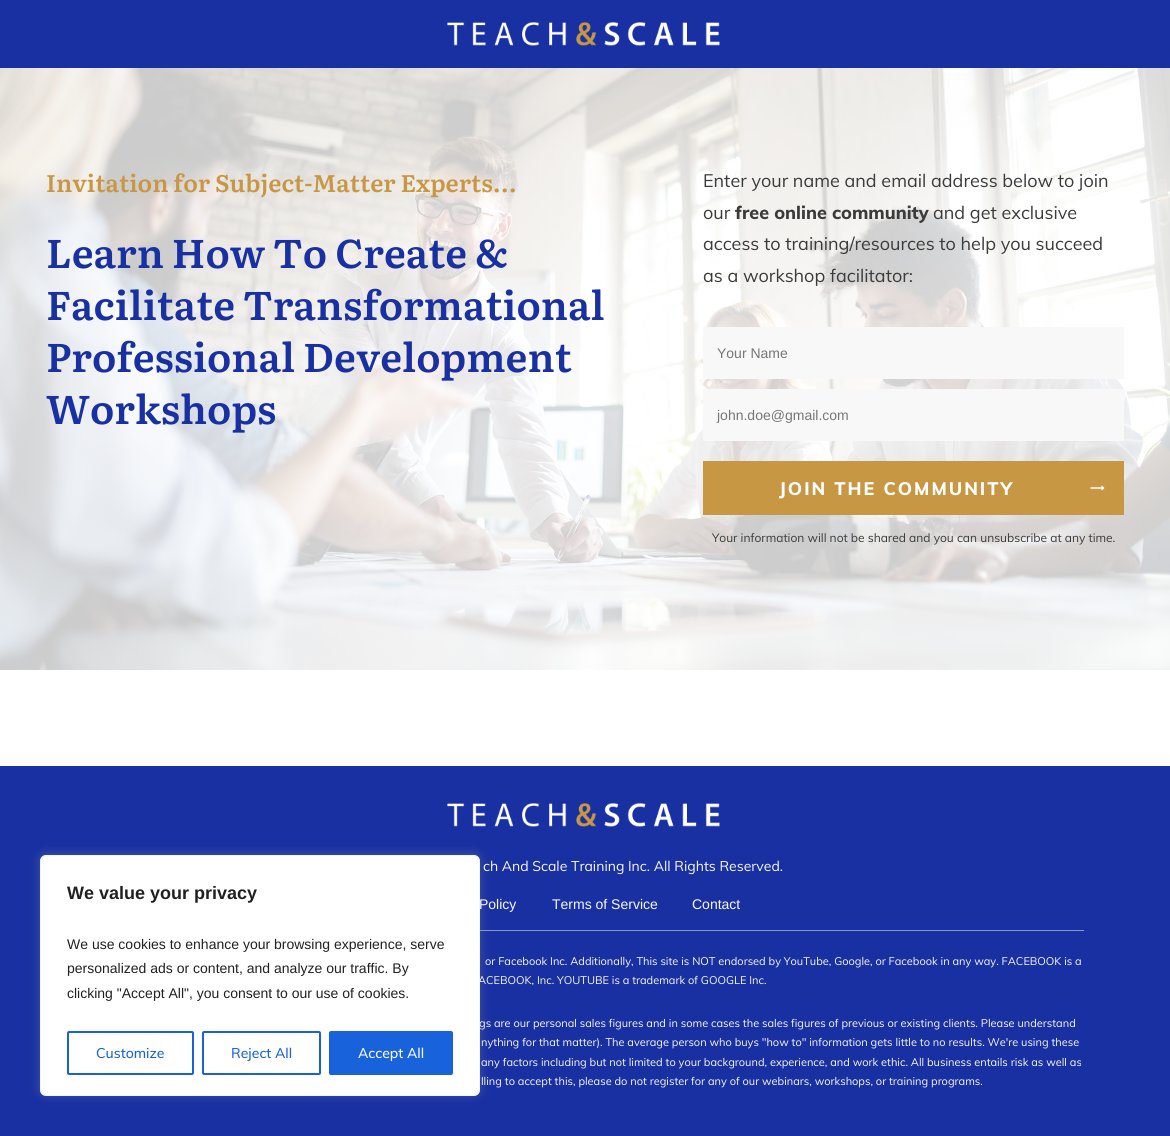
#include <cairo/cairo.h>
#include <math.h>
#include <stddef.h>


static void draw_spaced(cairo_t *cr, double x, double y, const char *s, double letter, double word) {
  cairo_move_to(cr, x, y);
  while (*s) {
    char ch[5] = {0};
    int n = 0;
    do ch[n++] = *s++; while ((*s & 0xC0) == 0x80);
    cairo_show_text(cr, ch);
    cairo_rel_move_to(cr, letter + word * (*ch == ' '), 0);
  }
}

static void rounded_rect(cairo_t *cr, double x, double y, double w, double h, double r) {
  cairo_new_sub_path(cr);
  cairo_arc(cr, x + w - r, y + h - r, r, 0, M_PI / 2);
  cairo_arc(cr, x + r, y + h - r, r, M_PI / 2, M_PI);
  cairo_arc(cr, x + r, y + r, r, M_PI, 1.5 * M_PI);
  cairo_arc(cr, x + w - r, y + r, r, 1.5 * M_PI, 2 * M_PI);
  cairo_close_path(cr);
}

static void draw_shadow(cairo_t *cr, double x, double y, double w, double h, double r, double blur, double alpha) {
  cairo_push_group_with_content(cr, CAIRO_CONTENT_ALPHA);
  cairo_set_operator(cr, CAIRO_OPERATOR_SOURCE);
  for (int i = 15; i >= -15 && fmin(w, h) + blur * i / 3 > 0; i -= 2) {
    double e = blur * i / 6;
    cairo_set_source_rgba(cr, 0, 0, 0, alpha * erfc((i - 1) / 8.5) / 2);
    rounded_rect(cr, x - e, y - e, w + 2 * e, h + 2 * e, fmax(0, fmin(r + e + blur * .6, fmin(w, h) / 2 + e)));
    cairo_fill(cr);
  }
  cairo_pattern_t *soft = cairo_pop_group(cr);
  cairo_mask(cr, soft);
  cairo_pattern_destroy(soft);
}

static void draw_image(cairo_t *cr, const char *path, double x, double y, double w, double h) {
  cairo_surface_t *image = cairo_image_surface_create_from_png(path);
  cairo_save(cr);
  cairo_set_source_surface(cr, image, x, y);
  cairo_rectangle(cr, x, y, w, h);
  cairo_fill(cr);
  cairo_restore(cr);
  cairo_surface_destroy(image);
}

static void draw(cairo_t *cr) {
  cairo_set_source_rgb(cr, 1, 1, 1);
  cairo_paint(cr);
  cairo_set_source_rgb(cr, 25 / 255.0, 48 / 255.0, 162 / 255.0);
  cairo_rectangle(cr, 0, 0, 1170, 68);
  cairo_fill(cr);
  draw_image(cr, "images/1.png", 447, 22, 273, 24);
  draw_image(cr, "images/2.png", 0, 68, 1170, 602);
  cairo_set_source_rgb(cr, 248 / 255.0, 248 / 255.0, 248 / 255.0);
  cairo_rectangle(cr, 703, 327, 421, 52);
  cairo_fill(cr);
  cairo_rectangle(cr, 703, 389, 421, 52);
  cairo_fill(cr);
  cairo_set_source_rgb(cr, 200 / 255.0, 151 / 255.0, 68 / 255.0);
  cairo_rectangle(cr, 703, 461, 421, 54);
  cairo_fill(cr);
  draw_image(cr, "images/3.png", 1090, 485, 15, 6);
  cairo_set_source_rgb(cr, 25 / 255.0, 48 / 255.0, 162 / 255.0);
  cairo_rectangle(cr, 0, 766, 1170, 370);
  cairo_fill(cr);
  draw_image(cr, "images/4.png", 447, 803, 273, 24);
  cairo_set_source_rgb(cr, 137 / 255.0, 148 / 255.0, 205 / 255.0);
  cairo_rectangle(cr, 480, 930, 604, 1);
  cairo_fill(cr);
  cairo_set_source_rgb(cr, 172 / 255.0, 171 / 255.0, 171 / 255.0);
  draw_shadow(cr, 40, 854, 440, 241, 6, 5, 0.3);
  cairo_select_font_face(cr, "Literata SemiBold", CAIRO_FONT_SLANT_NORMAL, CAIRO_FONT_WEIGHT_NORMAL);
  cairo_set_font_size(cr, 24);
  cairo_set_source_rgb(cr, 200 / 255.0, 151 / 255.0, 68 / 255.0);
  cairo_move_to(cr, 46, 192);
  cairo_show_text(cr, "Invitation for Subject-Matter Experts...");
  cairo_set_font_size(cr, 40);
  cairo_set_source_rgb(cr, 25 / 255.0, 48 / 255.0, 162 / 255.0);
  cairo_move_to(cr, 46, 268);
  cairo_show_text(cr, "Learn How To Create &");
  cairo_move_to(cr, 46, 320);
  cairo_show_text(cr, "Facilitate Transformational");
  cairo_move_to(cr, 46, 372);
  cairo_show_text(cr, "Professional Development");
  cairo_move_to(cr, 46, 424);
  cairo_show_text(cr, "Workshops");
  cairo_select_font_face(cr, "Muli", CAIRO_FONT_SLANT_NORMAL, CAIRO_FONT_WEIGHT_NORMAL);
  cairo_set_font_size(cr, 18);
  cairo_set_source_rgb(cr, 59 / 255.0, 59 / 255.0, 59 / 255.0);
  cairo_move_to(cr, 703, 187);
  cairo_show_text(cr, "Enter your name and email address below to join");
  cairo_move_to(cr, 703, 219);
  cairo_show_text(cr, "our");
  cairo_select_font_face(cr, "Muli ExtraBold", CAIRO_FONT_SLANT_NORMAL, CAIRO_FONT_WEIGHT_NORMAL);
  cairo_move_to(cr, 735, 219);
  cairo_show_text(cr, "free online community");
  cairo_select_font_face(cr, "Muli", CAIRO_FONT_SLANT_NORMAL, CAIRO_FONT_WEIGHT_NORMAL);
  cairo_move_to(cr, 933, 219);
  cairo_show_text(cr, "and get exclusive");
  cairo_move_to(cr, 703, 250);
  cairo_show_text(cr, "access to training/resources to help you succeed");
  cairo_move_to(cr, 703, 282);
  cairo_show_text(cr, "as a workshop facilitator:");
  cairo_select_font_face(cr, "Liberation Sans", CAIRO_FONT_SLANT_NORMAL, CAIRO_FONT_WEIGHT_NORMAL);
  cairo_set_font_size(cr, 14);
  cairo_set_source_rgb(cr, 118 / 255.0, 118 / 255.0, 118 / 255.0);
  cairo_move_to(cr, 717, 358);
  cairo_show_text(cr, "Your Name");
  cairo_move_to(cr, 717, 420);
  cairo_show_text(cr, "john.doe@gmail.com");
  cairo_select_font_face(cr, "Muli ExtraBold", CAIRO_FONT_SLANT_NORMAL, CAIRO_FONT_WEIGHT_NORMAL);
  cairo_set_font_size(cr, 18);
  cairo_set_source_rgb(cr, 1, 1, 1);
  draw_spaced(cr, 779, 495, "JOIN THE COMMUNITY", 2, 0);
  cairo_select_font_face(cr, "Muli", CAIRO_FONT_SLANT_NORMAL, CAIRO_FONT_WEIGHT_NORMAL);
  cairo_set_font_size(cr, 12);
  cairo_set_source_rgb(cr, 59 / 255.0, 59 / 255.0, 59 / 255.0);
  cairo_move_to(cr, 712, 542);
  cairo_show_text(cr, "Your information will not be shared and you can unsubscribe at any time.");
  cairo_set_font_size(cr, 14);
  cairo_set_source_rgb(cr, 248 / 255.0, 248 / 255.0, 248 / 255.0);
  cairo_move_to(cr, 483, 871);
  cairo_show_text(cr, "ch And Scale Training Inc. All Rights Reserved.");
  cairo_select_font_face(cr, "Liberation Sans", CAIRO_FONT_SLANT_NORMAL, CAIRO_FONT_WEIGHT_NORMAL);
  cairo_move_to(cr, 479, 909);
  cairo_show_text(cr, "Policy");
  cairo_move_to(cr, 552, 909);
  cairo_show_text(cr, "Terms of Service");
  cairo_move_to(cr, 692, 909);
  cairo_show_text(cr, "Contact");
  cairo_select_font_face(cr, "Muli", CAIRO_FONT_SLANT_NORMAL, CAIRO_FONT_WEIGHT_NORMAL);
  cairo_set_font_size(cr, 11);
  cairo_move_to(cr, 485, 965);
  cairo_show_text(cr, "or Facebook Inc. Additionally, This site is NOT endorsed by YouTube, Google, or Facebook in any way. FACEBOOK is a");
  cairo_move_to(cr, 478, 984);
  cairo_show_text(cr, "ACEBOOK, Inc. YOUTUBE is a trademark of GOOGLE Inc.");
  cairo_move_to(cr, 479, 1027);
  cairo_show_text(cr, "gs are our personal sales figures and in some cases the sales figures of previous or existing clients. Please understand");
  cairo_move_to(cr, 481, 1046);
  cairo_show_text(cr, "nything for that matter). The average person who buys \"how to\" information gets little to no results. We're using these");
  cairo_move_to(cr, 481, 1066);
  cairo_show_text(cr, "any factors including but not limited to your background, experience, and work ethic. All business entails risk as well as");
  cairo_move_to(cr, 481, 1085);
  cairo_show_text(cr, "lling to accept this, please do not register for any of our webinars, workshops, or training programs.");
  cairo_set_source_rgb(cr, 1, 1, 1);
  rounded_rect(cr, 40.5, 855.5, 439, 240, 5.5);
  cairo_fill_preserve(cr);
  cairo_set_source_rgb(cr, 244 / 255.0, 244 / 255.0, 244 / 255.0);
  cairo_set_line_width(cr, 1);
  cairo_stroke(cr);
  cairo_select_font_face(cr, "Liberation Sans", CAIRO_FONT_SLANT_NORMAL, CAIRO_FONT_WEIGHT_BOLD);
  cairo_set_font_size(cr, 18);
  cairo_set_source_rgb(cr, 33 / 255.0, 33 / 255.0, 33 / 255.0);
  cairo_move_to(cr, 67, 899);
  cairo_show_text(cr, "We value your privacy");
  cairo_select_font_face(cr, "Liberation Sans", CAIRO_FONT_SLANT_NORMAL, CAIRO_FONT_WEIGHT_NORMAL);
  cairo_set_font_size(cr, 14);
  cairo_move_to(cr, 67, 949);
  cairo_show_text(cr, "We use cookies to enhance your browsing experience, serve");
  cairo_move_to(cr, 67, 973);
  cairo_show_text(cr, "personalized ads or content, and analyze our traffic. By");
  cairo_move_to(cr, 67, 998);
  cairo_show_text(cr, "clicking \"Accept All\", you consent to our use of cookies.");
  rounded_rect(cr, 68, 1032, 125, 42, 1);
  cairo_set_source_rgb(cr, 24 / 255.0, 99 / 255.0, 220 / 255.0);
  cairo_set_line_width(cr, 2);
  cairo_stroke(cr);
  cairo_select_font_face(cr, "Muli Medium", CAIRO_FONT_SLANT_NORMAL, CAIRO_FONT_WEIGHT_NORMAL);
  cairo_move_to(cr, 96, 1058);
  cairo_show_text(cr, "Customize");
  rounded_rect(cr, 203, 1032, 117, 42, 1);
  cairo_stroke(cr);
  cairo_move_to(cr, 231, 1058);
  cairo_show_text(cr, "Reject All");
  rounded_rect(cr, 330, 1032, 122, 42, 1);
  cairo_fill_preserve(cr);
  cairo_stroke(cr);
  cairo_set_source_rgb(cr, 1, 1, 1);
  cairo_move_to(cr, 358, 1058);
  cairo_show_text(cr, "Accept All");
}

int main(void) {
  cairo_surface_t *surface = cairo_image_surface_create(CAIRO_FORMAT_RGB24, 1170, 1136);
  cairo_t *cr = cairo_create(surface);
  cairo_font_options_t *options = cairo_font_options_create();
  cairo_font_options_set_hint_metrics(options, CAIRO_HINT_METRICS_OFF);
  cairo_font_options_set_hint_style(options, CAIRO_HINT_STYLE_NONE);
  cairo_set_font_options(cr, options);
  cairo_set_miter_limit(cr, 4);
  draw(cr);
  cairo_surface_write_to_png(surface, "out.png");
  cairo_font_options_destroy(options);
  cairo_destroy(cr);
  cairo_surface_destroy(surface);
  return 0;
}
